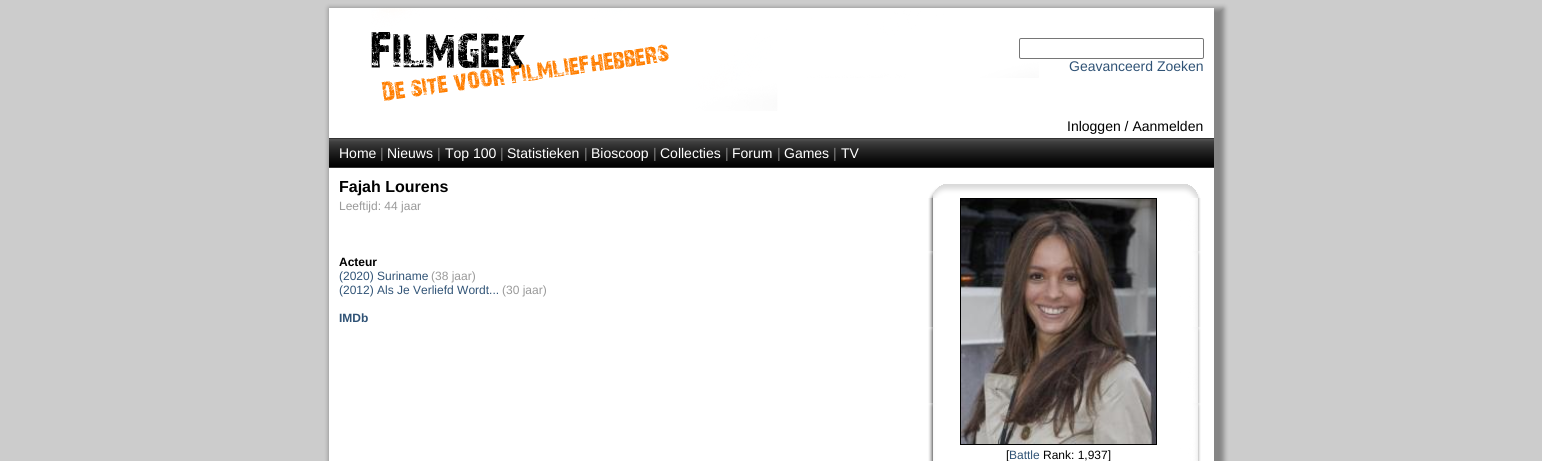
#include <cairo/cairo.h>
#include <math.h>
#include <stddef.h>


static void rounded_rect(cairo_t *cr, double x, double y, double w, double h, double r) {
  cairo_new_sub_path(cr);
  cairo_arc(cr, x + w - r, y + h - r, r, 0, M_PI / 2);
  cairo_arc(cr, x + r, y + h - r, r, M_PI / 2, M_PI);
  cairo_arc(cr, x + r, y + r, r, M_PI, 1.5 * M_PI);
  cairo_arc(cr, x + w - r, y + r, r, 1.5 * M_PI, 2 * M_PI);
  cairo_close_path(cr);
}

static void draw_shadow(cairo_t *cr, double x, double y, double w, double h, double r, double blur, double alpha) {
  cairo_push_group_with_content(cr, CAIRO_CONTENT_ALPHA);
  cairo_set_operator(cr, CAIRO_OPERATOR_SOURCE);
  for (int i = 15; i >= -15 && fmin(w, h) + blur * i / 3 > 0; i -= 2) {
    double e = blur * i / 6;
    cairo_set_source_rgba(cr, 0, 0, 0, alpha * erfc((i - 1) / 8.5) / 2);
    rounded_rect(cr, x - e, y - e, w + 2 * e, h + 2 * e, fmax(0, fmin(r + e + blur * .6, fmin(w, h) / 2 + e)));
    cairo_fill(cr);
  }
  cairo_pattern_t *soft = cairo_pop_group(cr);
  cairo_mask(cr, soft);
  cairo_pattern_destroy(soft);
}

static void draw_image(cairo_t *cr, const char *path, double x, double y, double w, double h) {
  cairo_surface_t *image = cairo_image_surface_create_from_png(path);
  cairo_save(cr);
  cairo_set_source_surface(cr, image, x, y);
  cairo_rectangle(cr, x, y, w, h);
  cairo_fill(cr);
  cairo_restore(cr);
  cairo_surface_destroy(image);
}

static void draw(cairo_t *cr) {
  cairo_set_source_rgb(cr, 204 / 255.0, 204 / 255.0, 204 / 255.0);
  cairo_paint(cr);
  cairo_set_source_rgb(cr, 133 / 255.0, 133 / 255.0, 133 / 255.0);
  draw_shadow(cr, 329, 8, 895, 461, 0, 2.5, 1);
  cairo_set_source_rgb(cr, 1, 1, 1);
  cairo_rectangle(cr, 329, 8, 885, 453);
  cairo_fill(cr);
  draw_image(cr, "images/1.png", 371, 8, 668, 103);
  rounded_rect(cr, 1019.5, 38.5, 184, 20, 1.5);
  cairo_set_source_rgb(cr, 118 / 255.0, 118 / 255.0, 118 / 255.0);
  cairo_set_line_width(cr, 1);
  cairo_stroke(cr);
  draw_image(cr, "images/2.png", 329, 138, 885, 30);
  draw_image(cr, "images/3.png", 929, 184, 271, 14);
  draw_image(cr, "images/4.png", 928, 198, 273, 263);
  cairo_rectangle(cr, 960.5, 198.5, 196, 246);
  cairo_set_source_rgb(cr, 0, 0, 0);
  cairo_stroke(cr);
  draw_image(cr, "images/5.png", 961, 199, 195, 245);
  cairo_select_font_face(cr, "Liberation Sans", CAIRO_FONT_SLANT_NORMAL, CAIRO_FONT_WEIGHT_NORMAL);
  cairo_set_font_size(cr, 14);
  cairo_set_source_rgb(cr, 48 / 255.0, 83 / 255.0, 118 / 255.0);
  cairo_move_to(cr, 1069, 71);
  cairo_show_text(cr, "Geavanceerd Zoeken");
  cairo_set_source_rgb(cr, 0, 0, 0);
  cairo_move_to(cr, 1067, 131);
  cairo_show_text(cr, "Inloggen / Aanmelden");
  cairo_set_source_rgb(cr, 1, 1, 1);
  cairo_move_to(cr, 339, 158);
  cairo_show_text(cr, "Home");
  cairo_set_source_rgb(cr, 128 / 255.0, 128 / 255.0, 128 / 255.0);
  cairo_move_to(cr, 380, 158);
  cairo_show_text(cr, "|");
  cairo_set_source_rgb(cr, 1, 1, 1);
  cairo_move_to(cr, 387, 158);
  cairo_show_text(cr, "Nieuws");
  cairo_set_source_rgb(cr, 128 / 255.0, 128 / 255.0, 128 / 255.0);
  cairo_move_to(cr, 437, 158);
  cairo_show_text(cr, "|");
  cairo_set_source_rgb(cr, 1, 1, 1);
  cairo_move_to(cr, 445, 158);
  cairo_show_text(cr, "Top 100");
  cairo_set_source_rgb(cr, 128 / 255.0, 128 / 255.0, 128 / 255.0);
  cairo_move_to(cr, 500, 158);
  cairo_show_text(cr, "|");
  cairo_set_source_rgb(cr, 1, 1, 1);
  cairo_move_to(cr, 507, 158);
  cairo_show_text(cr, "Statistieken");
  cairo_set_source_rgb(cr, 128 / 255.0, 128 / 255.0, 128 / 255.0);
  cairo_move_to(cr, 584, 158);
  cairo_show_text(cr, "|");
  cairo_set_source_rgb(cr, 1, 1, 1);
  cairo_move_to(cr, 591, 158);
  cairo_show_text(cr, "Bioscoop");
  cairo_set_source_rgb(cr, 128 / 255.0, 128 / 255.0, 128 / 255.0);
  cairo_move_to(cr, 653, 158);
  cairo_show_text(cr, "|");
  cairo_set_source_rgb(cr, 1, 1, 1);
  cairo_move_to(cr, 660, 158);
  cairo_show_text(cr, "Collecties");
  cairo_set_source_rgb(cr, 128 / 255.0, 128 / 255.0, 128 / 255.0);
  cairo_move_to(cr, 725, 158);
  cairo_show_text(cr, "|");
  cairo_set_source_rgb(cr, 1, 1, 1);
  cairo_move_to(cr, 732, 158);
  cairo_show_text(cr, "Forum");
  cairo_set_source_rgb(cr, 128 / 255.0, 128 / 255.0, 128 / 255.0);
  cairo_move_to(cr, 777, 158);
  cairo_show_text(cr, "|");
  cairo_set_source_rgb(cr, 1, 1, 1);
  cairo_move_to(cr, 784, 158);
  cairo_show_text(cr, "Games");
  cairo_set_source_rgb(cr, 128 / 255.0, 128 / 255.0, 128 / 255.0);
  cairo_move_to(cr, 833, 158);
  cairo_show_text(cr, "|");
  cairo_set_source_rgb(cr, 1, 1, 1);
  cairo_move_to(cr, 841, 158);
  cairo_show_text(cr, "TV");
  cairo_select_font_face(cr, "Liberation Sans", CAIRO_FONT_SLANT_NORMAL, CAIRO_FONT_WEIGHT_BOLD);
  cairo_set_font_size(cr, 16);
  cairo_set_source_rgb(cr, 0, 0, 0);
  cairo_move_to(cr, 339, 192);
  cairo_show_text(cr, "Fajah Lourens");
  cairo_select_font_face(cr, "Liberation Sans", CAIRO_FONT_SLANT_NORMAL, CAIRO_FONT_WEIGHT_NORMAL);
  cairo_set_font_size(cr, 12);
  cairo_set_source_rgb(cr, 153 / 255.0, 153 / 255.0, 153 / 255.0);
  cairo_move_to(cr, 339, 210);
  cairo_show_text(cr, "Leeftijd: 44 jaar");
  cairo_select_font_face(cr, "Liberation Sans", CAIRO_FONT_SLANT_NORMAL, CAIRO_FONT_WEIGHT_BOLD);
  cairo_set_source_rgb(cr, 0, 0, 0);
  cairo_move_to(cr, 339, 266);
  cairo_show_text(cr, "Acteur");
  cairo_select_font_face(cr, "Liberation Sans", CAIRO_FONT_SLANT_NORMAL, CAIRO_FONT_WEIGHT_NORMAL);
  cairo_set_source_rgb(cr, 48 / 255.0, 83 / 255.0, 118 / 255.0);
  cairo_move_to(cr, 339, 280);
  cairo_show_text(cr, "(2020) Suriname");
  cairo_set_source_rgb(cr, 153 / 255.0, 153 / 255.0, 153 / 255.0);
  cairo_move_to(cr, 431, 280);
  cairo_show_text(cr, "(38 jaar)");
  cairo_set_source_rgb(cr, 48 / 255.0, 83 / 255.0, 118 / 255.0);
  cairo_move_to(cr, 339, 294);
  cairo_show_text(cr, "(2012) Als Je Verliefd Wordt...");
  cairo_set_source_rgb(cr, 153 / 255.0, 153 / 255.0, 153 / 255.0);
  cairo_move_to(cr, 502, 294);
  cairo_show_text(cr, "(30 jaar)");
  cairo_select_font_face(cr, "Liberation Sans", CAIRO_FONT_SLANT_NORMAL, CAIRO_FONT_WEIGHT_BOLD);
  cairo_set_source_rgb(cr, 48 / 255.0, 83 / 255.0, 118 / 255.0);
  cairo_move_to(cr, 339, 322);
  cairo_show_text(cr, "IMDb");
  cairo_select_font_face(cr, "Liberation Sans", CAIRO_FONT_SLANT_NORMAL, CAIRO_FONT_WEIGHT_NORMAL);
  cairo_set_source_rgb(cr, 0, 0, 0);
  cairo_move_to(cr, 1006, 459);
  cairo_show_text(cr, "[");
  cairo_set_source_rgb(cr, 48 / 255.0, 83 / 255.0, 118 / 255.0);
  cairo_move_to(cr, 1009, 459);
  cairo_show_text(cr, "Battle");
  cairo_set_source_rgb(cr, 0, 0, 0);
  cairo_move_to(cr, 1043, 459);
  cairo_show_text(cr, "Rank: 1,937]");
}

int main(void) {
  cairo_surface_t *surface = cairo_image_surface_create(CAIRO_FORMAT_RGB24, 1542, 461);
  cairo_t *cr = cairo_create(surface);
  cairo_font_options_t *options = cairo_font_options_create();
  cairo_font_options_set_hint_metrics(options, CAIRO_HINT_METRICS_OFF);
  cairo_font_options_set_hint_style(options, CAIRO_HINT_STYLE_NONE);
  cairo_set_font_options(cr, options);
  cairo_set_miter_limit(cr, 4);
  draw(cr);
  cairo_surface_write_to_png(surface, "out.png");
  cairo_font_options_destroy(options);
  cairo_destroy(cr);
  cairo_surface_destroy(surface);
  return 0;
}
